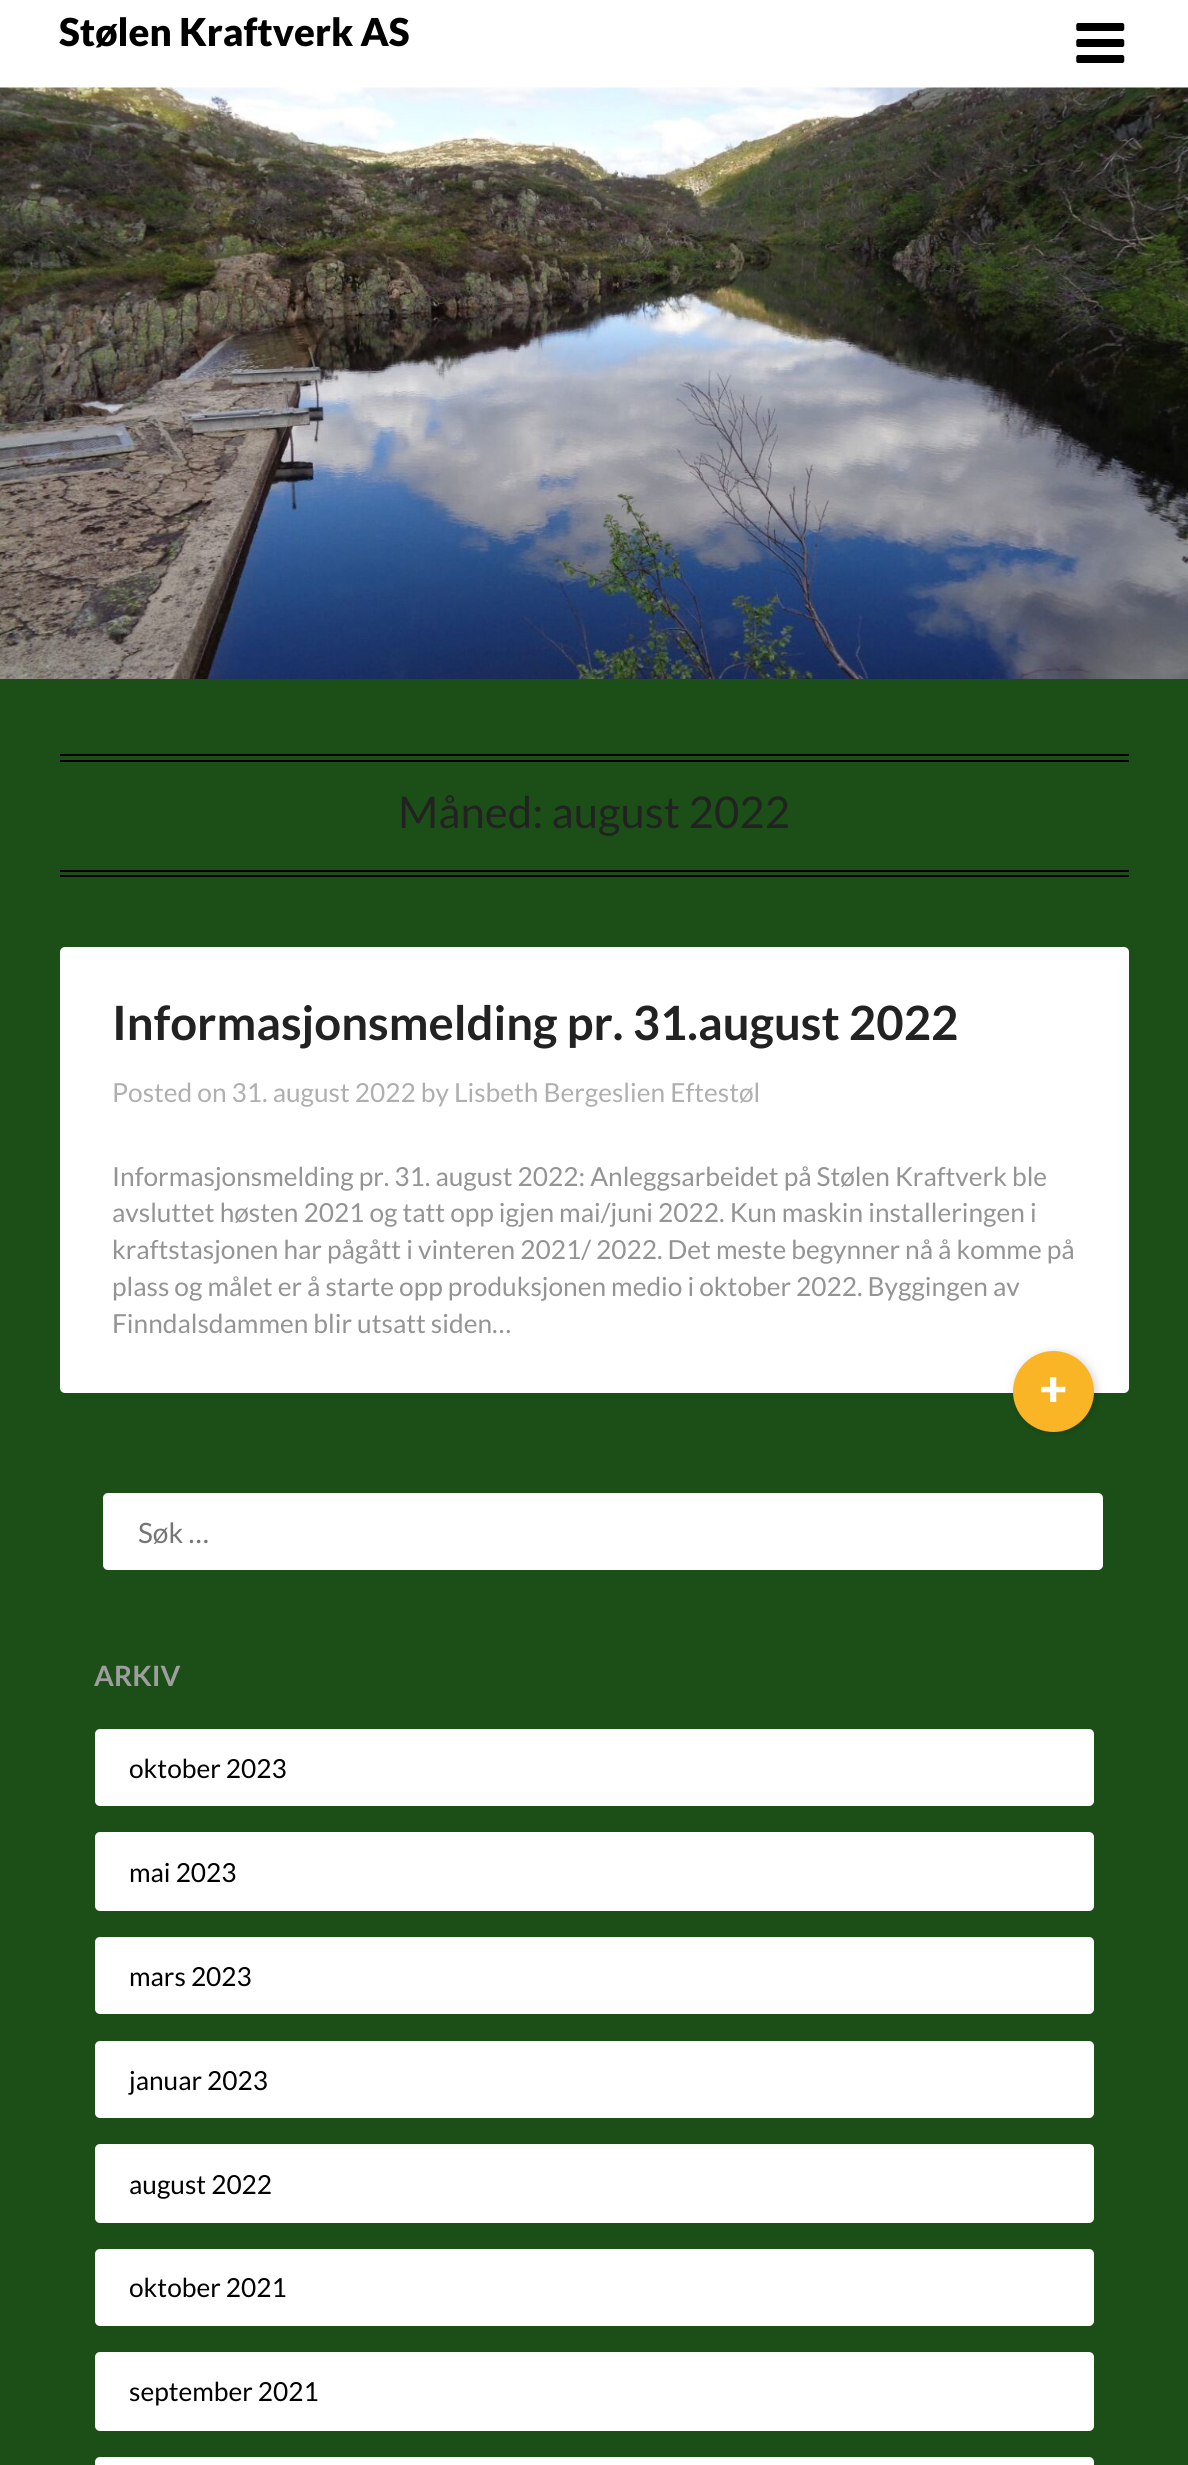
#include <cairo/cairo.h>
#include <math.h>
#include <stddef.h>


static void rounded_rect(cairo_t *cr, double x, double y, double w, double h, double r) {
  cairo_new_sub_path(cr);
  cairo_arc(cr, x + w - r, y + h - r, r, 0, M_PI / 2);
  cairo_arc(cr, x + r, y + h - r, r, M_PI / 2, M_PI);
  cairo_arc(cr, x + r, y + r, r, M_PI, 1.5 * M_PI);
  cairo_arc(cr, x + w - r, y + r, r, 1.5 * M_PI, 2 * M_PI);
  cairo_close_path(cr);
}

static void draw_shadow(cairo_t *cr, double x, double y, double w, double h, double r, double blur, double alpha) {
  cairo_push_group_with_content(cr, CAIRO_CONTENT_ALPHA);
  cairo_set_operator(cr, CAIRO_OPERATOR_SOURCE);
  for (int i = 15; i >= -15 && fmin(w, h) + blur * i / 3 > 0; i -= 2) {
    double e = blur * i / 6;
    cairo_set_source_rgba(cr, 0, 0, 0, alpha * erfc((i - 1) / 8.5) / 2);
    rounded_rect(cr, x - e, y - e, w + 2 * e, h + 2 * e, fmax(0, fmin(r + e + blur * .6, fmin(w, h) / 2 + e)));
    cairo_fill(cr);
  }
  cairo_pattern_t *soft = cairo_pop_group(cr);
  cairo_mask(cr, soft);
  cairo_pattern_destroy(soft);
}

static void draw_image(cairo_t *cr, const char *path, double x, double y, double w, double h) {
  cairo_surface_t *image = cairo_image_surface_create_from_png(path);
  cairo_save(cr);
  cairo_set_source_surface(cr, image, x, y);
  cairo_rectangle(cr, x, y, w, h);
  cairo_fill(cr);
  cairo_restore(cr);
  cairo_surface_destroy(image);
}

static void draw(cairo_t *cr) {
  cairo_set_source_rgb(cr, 28 / 255.0, 79 / 255.0, 23 / 255.0);
  cairo_paint(cr);
  cairo_set_source_rgb(cr, 1, 1, 1);
  cairo_rectangle(cr, 0, 0, 1188, 88);
  cairo_fill(cr);
  draw_image(cr, "images/1.png", 1076, 23, 49, 40);
  draw_image(cr, "images/2.png", 0, 87, 1188, 592);
  cairo_set_source_rgb(cr, 0, 0, 0);
  cairo_rectangle(cr, 60, 754, 1069, 2);
  cairo_fill(cr);
  cairo_rectangle(cr, 60, 760, 1069, 2);
  cairo_fill(cr);
  cairo_rectangle(cr, 60, 870, 1069, 2);
  cairo_fill(cr);
  cairo_rectangle(cr, 60, 875, 1069, 2);
  cairo_fill(cr);
  cairo_set_source_rgb(cr, 1, 1, 1);
  rounded_rect(cr, 60, 947, 1069, 446, 5);
  cairo_fill(cr);
  cairo_set_source_rgb(cr, 0, 0, 0);
  draw_shadow(cr, 1015, 1353, 81, 80, 40, 4.5, 0.19);
  cairo_set_source_rgb(cr, 250 / 255.0, 181 / 255.0, 38 / 255.0);
  cairo_arc(cr, 1053.5, 1391.5, 40.5, 0, 2 * M_PI);
  cairo_fill(cr);
  cairo_set_source_rgb(cr, 1, 1, 1);
  rounded_rect(cr, 103, 1493, 1000, 77, 5);
  cairo_fill(cr);
  rounded_rect(cr, 95, 1729, 999, 77, 5);
  cairo_fill(cr);
  rounded_rect(cr, 95, 1832, 999, 79, 5);
  cairo_fill(cr);
  rounded_rect(cr, 95, 1937, 999, 77, 5);
  cairo_fill(cr);
  rounded_rect(cr, 95, 2041, 999, 77, 5);
  cairo_fill(cr);
  rounded_rect(cr, 95, 2144, 999, 79, 5);
  cairo_fill(cr);
  rounded_rect(cr, 95, 2249, 999, 77, 5);
  cairo_fill(cr);
  rounded_rect(cr, 95, 2352, 999, 79, 5);
  cairo_fill(cr);
  rounded_rect(cr, 95, 2457, 999, 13, 5);
  cairo_fill(cr);
  cairo_select_font_face(cr, "Lato Black", CAIRO_FONT_SLANT_NORMAL, CAIRO_FONT_WEIGHT_NORMAL);
  cairo_set_font_size(cr, 38.5);
  cairo_set_source_rgb(cr, 0, 0, 0);
  cairo_move_to(cr, 59, 46);
  cairo_show_text(cr, "Stølen Kraftverk AS");
  cairo_select_font_face(cr, "Lato", CAIRO_FONT_SLANT_NORMAL, CAIRO_FONT_WEIGHT_NORMAL);
  cairo_set_font_size(cr, 43.75);
  cairo_set_source_rgb(cr, 34 / 255.0, 34 / 255.0, 34 / 255.0);
  cairo_move_to(cr, 398, 828);
  cairo_show_text(cr, "Måned: august 2022");
  cairo_select_font_face(cr, "Lato", CAIRO_FONT_SLANT_NORMAL, CAIRO_FONT_WEIGHT_BOLD);
  cairo_set_font_size(cr, 47.25);
  cairo_move_to(cr, 112, 1040);
  cairo_show_text(cr, "Informasjonsmelding pr. 31.august 2022");
  cairo_select_font_face(cr, "Lato", CAIRO_FONT_SLANT_NORMAL, CAIRO_FONT_WEIGHT_NORMAL);
  cairo_set_font_size(cr, 26.25);
  cairo_set_source_rgb(cr, 175 / 255.0, 175 / 255.0, 175 / 255.0);
  cairo_move_to(cr, 112, 1102);
  cairo_show_text(cr, "Posted on 31. august 2022 by Lisbeth Bergeslien Eftestøl");
  cairo_set_source_rgb(cr, 148 / 255.0, 148 / 255.0, 148 / 255.0);
  cairo_move_to(cr, 112, 1186);
  cairo_show_text(cr, "Informasjonsmelding pr. 31. august 2022: Anleggsarbeidet på Stølen Kraftverk ble");
  cairo_move_to(cr, 112, 1222);
  cairo_show_text(cr, "avsluttet høsten 2021 og tatt opp igjen mai/juni 2022. Kun maskin installeringen i");
  cairo_move_to(cr, 112, 1259);
  cairo_show_text(cr, "kraftstasjonen har pågått i vinteren 2021/ 2022. Det meste begynner nå å komme på");
  cairo_move_to(cr, 112, 1296);
  cairo_show_text(cr, "plass og målet er å starte opp produksjonen medio i oktober 2022. Byggingen av");
  cairo_move_to(cr, 112, 1333);
  cairo_show_text(cr, "Finndalsdammen blir utsatt siden…");
  cairo_select_font_face(cr, "Lato Black", CAIRO_FONT_SLANT_NORMAL, CAIRO_FONT_WEIGHT_NORMAL);
  cairo_set_font_size(cr, 49);
  cairo_set_source_rgb(cr, 1, 1, 1);
  cairo_move_to(cr, 1039, 1406);
  cairo_show_text(cr, "+");
  cairo_select_font_face(cr, "Lato", CAIRO_FONT_SLANT_NORMAL, CAIRO_FONT_WEIGHT_NORMAL);
  cairo_set_font_size(cr, 28);
  cairo_set_source_rgb(cr, 117 / 255.0, 117 / 255.0, 117 / 255.0);
  cairo_move_to(cr, 138, 1543);
  cairo_show_text(cr, "Søk …");
  cairo_select_font_face(cr, "Lato", CAIRO_FONT_SLANT_NORMAL, CAIRO_FONT_WEIGHT_BOLD);
  cairo_set_source_rgb(cr, 158 / 255.0, 158 / 255.0, 158 / 255.0);
  cairo_move_to(cr, 94, 1686);
  cairo_show_text(cr, "ARKIV");
  cairo_select_font_face(cr, "Lato", CAIRO_FONT_SLANT_NORMAL, CAIRO_FONT_WEIGHT_NORMAL);
  cairo_set_font_size(cr, 26.25);
  cairo_set_source_rgb(cr, 0, 0, 0);
  cairo_move_to(cr, 129, 1778);
  cairo_show_text(cr, "oktober 2023");
  cairo_move_to(cr, 129, 1882);
  cairo_show_text(cr, "mai 2023");
  cairo_move_to(cr, 129, 1986);
  cairo_show_text(cr, "mars 2023");
  cairo_move_to(cr, 129, 2090);
  cairo_show_text(cr, "januar 2023");
  cairo_move_to(cr, 129, 2194);
  cairo_show_text(cr, "august 2022");
  cairo_move_to(cr, 129, 2297);
  cairo_show_text(cr, "oktober 2021");
  cairo_move_to(cr, 129, 2401);
  cairo_show_text(cr, "september 2021");
}

int main(void) {
  cairo_surface_t *surface = cairo_image_surface_create(CAIRO_FORMAT_RGB24, 1188, 2465);
  cairo_t *cr = cairo_create(surface);
  cairo_font_options_t *options = cairo_font_options_create();
  cairo_font_options_set_hint_metrics(options, CAIRO_HINT_METRICS_OFF);
  cairo_font_options_set_hint_style(options, CAIRO_HINT_STYLE_NONE);
  cairo_set_font_options(cr, options);
  cairo_set_miter_limit(cr, 4);
  draw(cr);
  cairo_surface_write_to_png(surface, "out.png");
  cairo_font_options_destroy(options);
  cairo_destroy(cr);
  cairo_surface_destroy(surface);
  return 0;
}
